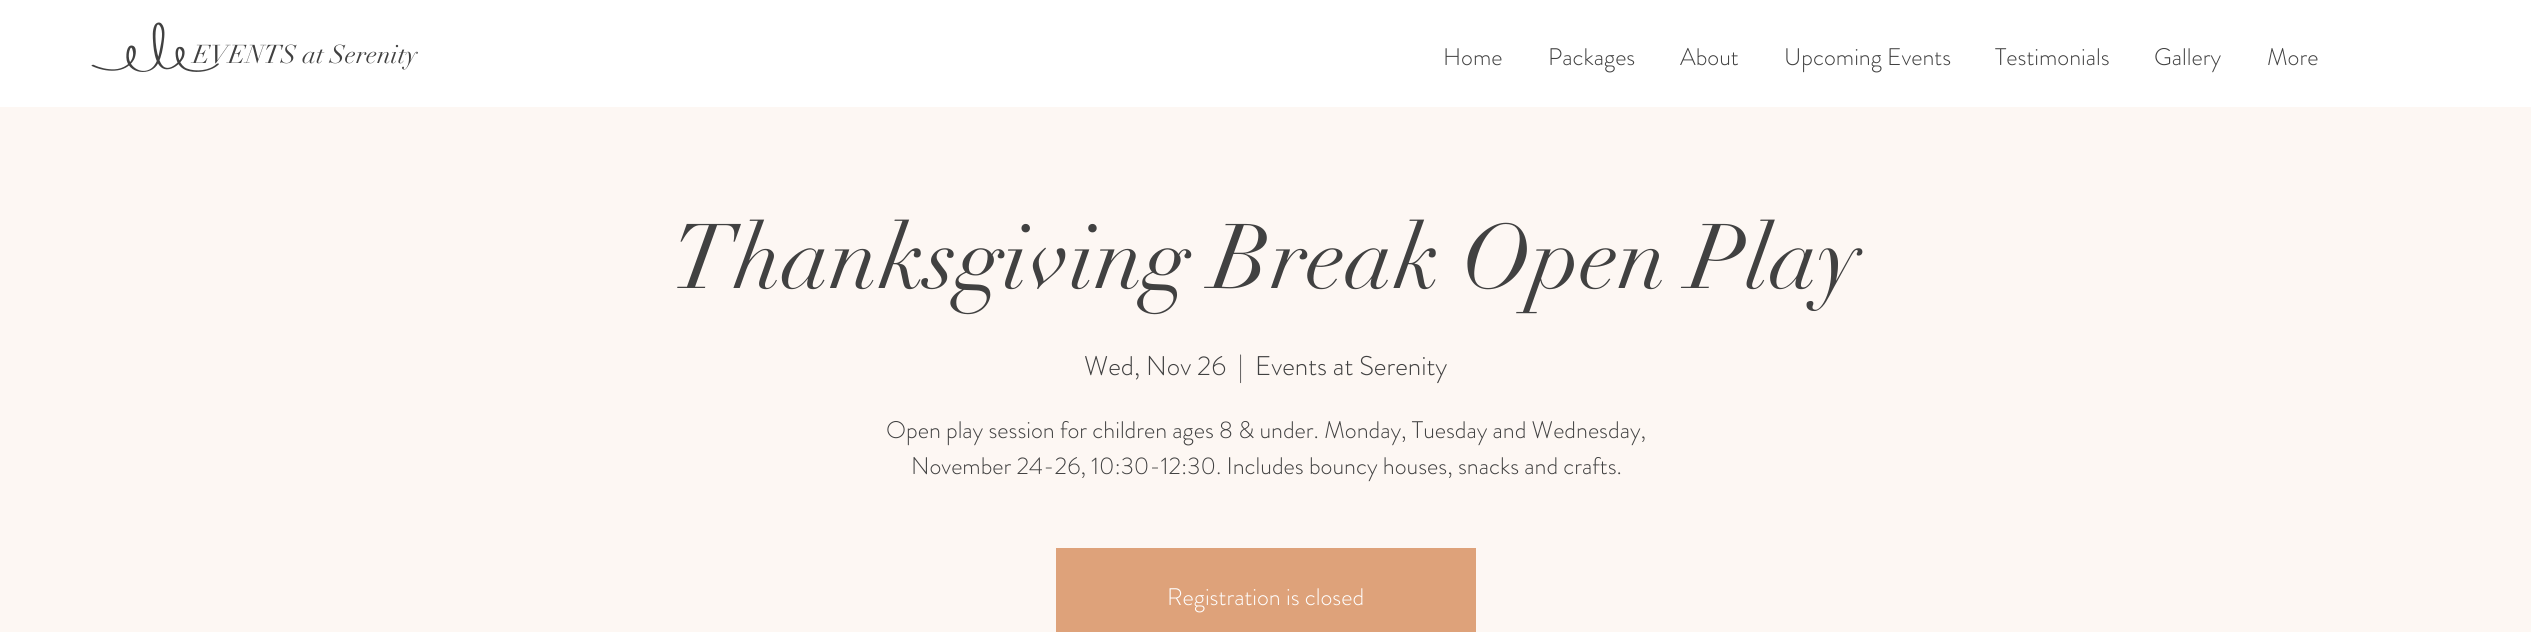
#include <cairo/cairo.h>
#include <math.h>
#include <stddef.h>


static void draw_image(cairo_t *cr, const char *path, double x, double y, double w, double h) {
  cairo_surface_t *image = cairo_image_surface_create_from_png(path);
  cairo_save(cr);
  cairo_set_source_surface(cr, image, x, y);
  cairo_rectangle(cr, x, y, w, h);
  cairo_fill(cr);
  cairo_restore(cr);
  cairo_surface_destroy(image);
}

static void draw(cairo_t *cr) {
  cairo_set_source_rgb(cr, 1, 1, 1);
  cairo_paint(cr);
  cairo_set_source_rgb(cr, 253 / 255.0, 247 / 255.0, 243 / 255.0);
  cairo_rectangle(cr, 0, 107, 2531, 525);
  cairo_fill(cr);
  cairo_set_source_rgb(cr, 222 / 255.0, 162 / 255.0, 122 / 255.0);
  cairo_rectangle(cr, 1056, 548, 420, 84);
  cairo_fill(cr);
  cairo_select_font_face(cr, "didot", CAIRO_FONT_SLANT_NORMAL, CAIRO_FONT_WEIGHT_NORMAL);
  cairo_set_font_size(cr, 25.5);
  cairo_set_source_rgb(cr, 65 / 255.0, 65 / 255.0, 65 / 255.0);
  cairo_move_to(cr, 193, 63);
  cairo_show_text(cr, "EVENTS at Serenity");
  draw_image(cr, "images/1.png", 91, 22, 128, 50);
  cairo_select_font_face(cr, "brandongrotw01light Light", CAIRO_FONT_SLANT_NORMAL, CAIRO_FONT_WEIGHT_NORMAL);
  cairo_set_font_size(cr, 24);
  cairo_move_to(cr, 1443, 65);
  cairo_show_text(cr, "Home");
  cairo_move_to(cr, 1548, 65);
  cairo_show_text(cr, "Packages");
  cairo_move_to(cr, 1680, 65);
  cairo_show_text(cr, "About");
  cairo_move_to(cr, 1784, 65);
  cairo_show_text(cr, "Upcoming Events");
  cairo_move_to(cr, 1995, 65);
  cairo_show_text(cr, "Testimonials");
  cairo_move_to(cr, 2154, 65);
  cairo_show_text(cr, "Gallery");
  cairo_move_to(cr, 2267, 65);
  cairo_show_text(cr, "More");
  cairo_select_font_face(cr, "didot", CAIRO_FONT_SLANT_NORMAL, CAIRO_FONT_WEIGHT_NORMAL);
  cairo_set_font_size(cr, 90);
  cairo_move_to(cr, 672, 288);
  cairo_show_text(cr, "Thanksgiving Break Open Play");
  cairo_select_font_face(cr, "brandongrotw01light Light", CAIRO_FONT_SLANT_NORMAL, CAIRO_FONT_WEIGHT_NORMAL);
  cairo_set_font_size(cr, 27);
  cairo_move_to(cr, 1084, 375);
  cairo_show_text(cr, "Wed, Nov 26");
  cairo_move_to(cr, 1238, 375);
  cairo_show_text(cr, "|");
  cairo_move_to(cr, 1255, 375);
  cairo_show_text(cr, "Events at Serenity");
  cairo_set_font_size(cr, 24);
  cairo_move_to(cr, 886, 438);
  cairo_show_text(cr, "Open play session for children ages 8 & under. Monday, Tuesday and Wednesday,");
  cairo_move_to(cr, 911, 474);
  cairo_show_text(cr, "November 24-26, 10:30-12:30. Includes bouncy houses, snacks and crafts.");
  cairo_set_source_rgb(cr, 1, 1, 1);
  cairo_move_to(cr, 1167, 605);
  cairo_show_text(cr, "Registration is closed");
}

int main(void) {
  cairo_surface_t *surface = cairo_image_surface_create(CAIRO_FORMAT_RGB24, 2531, 632);
  cairo_t *cr = cairo_create(surface);
  cairo_font_options_t *options = cairo_font_options_create();
  cairo_font_options_set_hint_metrics(options, CAIRO_HINT_METRICS_OFF);
  cairo_font_options_set_hint_style(options, CAIRO_HINT_STYLE_NONE);
  cairo_set_font_options(cr, options);
  cairo_set_miter_limit(cr, 4);
  draw(cr);
  cairo_surface_write_to_png(surface, "out.png");
  cairo_font_options_destroy(options);
  cairo_destroy(cr);
  cairo_surface_destroy(surface);
  return 0;
}
